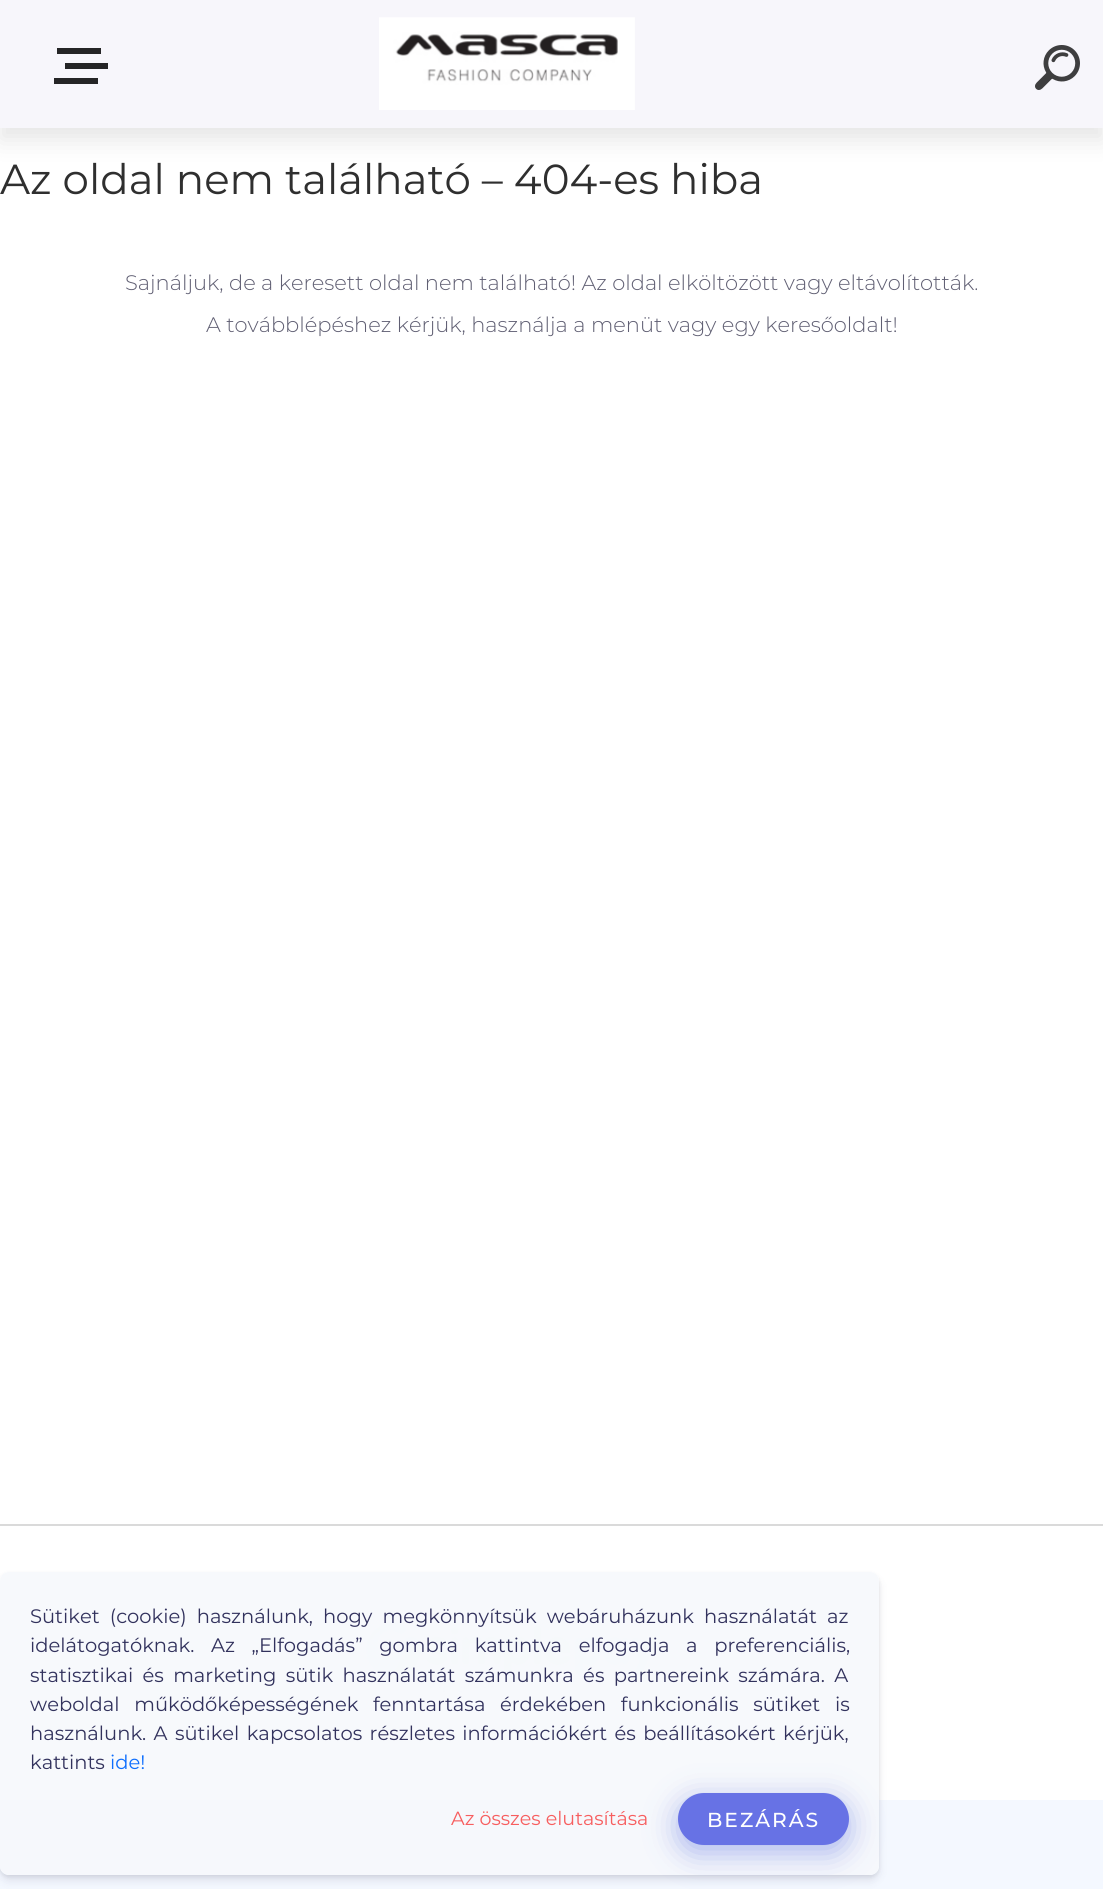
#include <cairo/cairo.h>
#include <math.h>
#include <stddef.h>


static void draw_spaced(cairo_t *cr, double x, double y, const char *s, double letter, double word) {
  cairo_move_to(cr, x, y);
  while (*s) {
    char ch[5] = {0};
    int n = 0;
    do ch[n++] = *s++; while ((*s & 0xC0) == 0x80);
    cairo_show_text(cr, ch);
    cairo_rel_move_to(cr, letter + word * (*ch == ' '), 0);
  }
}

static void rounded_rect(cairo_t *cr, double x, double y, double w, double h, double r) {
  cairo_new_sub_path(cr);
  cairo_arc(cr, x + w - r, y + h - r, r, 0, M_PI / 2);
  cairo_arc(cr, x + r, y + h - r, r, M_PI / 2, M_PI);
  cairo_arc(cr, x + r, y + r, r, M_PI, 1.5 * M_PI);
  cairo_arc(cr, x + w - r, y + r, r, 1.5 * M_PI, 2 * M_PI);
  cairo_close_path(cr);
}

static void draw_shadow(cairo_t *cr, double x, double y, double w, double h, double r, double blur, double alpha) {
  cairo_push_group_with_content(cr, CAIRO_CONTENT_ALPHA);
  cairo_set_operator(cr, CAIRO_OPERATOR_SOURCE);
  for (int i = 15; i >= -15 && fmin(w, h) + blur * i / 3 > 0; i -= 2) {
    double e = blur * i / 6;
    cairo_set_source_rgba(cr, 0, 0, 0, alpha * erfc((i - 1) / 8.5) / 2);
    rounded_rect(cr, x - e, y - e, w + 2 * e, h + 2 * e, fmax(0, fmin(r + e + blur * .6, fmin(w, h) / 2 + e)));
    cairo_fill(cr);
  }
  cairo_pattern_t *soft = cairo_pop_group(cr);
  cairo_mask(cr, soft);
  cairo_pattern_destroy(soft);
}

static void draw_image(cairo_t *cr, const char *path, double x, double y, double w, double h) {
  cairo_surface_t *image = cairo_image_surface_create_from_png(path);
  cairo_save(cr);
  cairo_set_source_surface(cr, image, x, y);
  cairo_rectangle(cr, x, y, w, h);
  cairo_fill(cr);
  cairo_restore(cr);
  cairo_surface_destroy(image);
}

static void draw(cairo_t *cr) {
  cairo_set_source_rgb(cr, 1, 1, 1);
  cairo_paint(cr);
  cairo_set_source_rgb(cr, 0, 0, 0);
  draw_shadow(cr, 0, 12, 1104, 128, 0, 12, 0.1);
  cairo_set_source_rgb(cr, 247 / 255.0, 246 / 255.0, 251 / 255.0);
  cairo_rectangle(cr, 0, 0, 1103, 128);
  cairo_fill(cr);
  cairo_set_source_rgb(cr, 37 / 255.0, 37 / 255.0, 38 / 255.0);
  cairo_rectangle(cr, 57, 48, 44, 6);
  cairo_fill(cr);
  cairo_rectangle(cr, 65, 63, 43, 6);
  cairo_fill(cr);
  cairo_rectangle(cr, 54, 78, 44, 6);
  cairo_fill(cr);
  draw_image(cr, "images/1.png", 379, 17, 256, 93);
  draw_image(cr, "images/2.png", 1035, 45, 45, 45);
  cairo_set_source_rgb(cr, 218 / 255.0, 218 / 255.0, 218 / 255.0);
  cairo_rectangle(cr, 0, 1524, 1103, 2);
  cairo_fill(cr);
  draw_image(cr, "images/3.png", 366, 1622, 290, 71);
  cairo_set_source_rgb(cr, 244 / 255.0, 248 / 255.0, 1);
  cairo_rectangle(cr, 0, 1800, 1103, 89);
  cairo_fill(cr);
  cairo_save(cr);
  cairo_set_fill_rule(cr, CAIRO_FILL_RULE_EVEN_ODD);
  cairo_new_path(cr);
  cairo_move_to(cr, 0, 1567);
  cairo_line_to(cr, 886, 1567);
  cairo_line_to(cr, 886, 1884);
  cairo_line_to(cr, 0, 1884);
  cairo_close_path(cr);
  cairo_move_to(cr, 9, 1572);
  cairo_line_to(cr, 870, 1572);
  cairo_curve_to(cr, 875, 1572, 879, 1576, 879, 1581);
  cairo_line_to(cr, 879, 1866);
  cairo_curve_to(cr, 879, 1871, 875, 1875, 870, 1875);
  cairo_line_to(cr, 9, 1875);
  cairo_curve_to(cr, 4, 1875, 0, 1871, 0, 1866);
  cairo_line_to(cr, 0, 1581);
  cairo_curve_to(cr, 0, 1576, 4, 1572, 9, 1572);
  cairo_close_path(cr);
  cairo_clip(cr);
  cairo_set_source_rgb(cr, 0, 0, 0);
  draw_shadow(cr, 0, 1574, 879, 303, 9, 2, 0.08);
  cairo_restore(cr);
  cairo_save(cr);
  cairo_set_fill_rule(cr, CAIRO_FILL_RULE_EVEN_ODD);
  cairo_new_path(cr);
  cairo_move_to(cr, 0, 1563);
  cairo_line_to(cr, 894, 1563);
  cairo_line_to(cr, 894, 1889);
  cairo_line_to(cr, 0, 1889);
  cairo_close_path(cr);
  cairo_move_to(cr, 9, 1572);
  cairo_line_to(cr, 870, 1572);
  cairo_curve_to(cr, 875, 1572, 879, 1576, 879, 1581);
  cairo_line_to(cr, 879, 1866);
  cairo_curve_to(cr, 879, 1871, 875, 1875, 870, 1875);
  cairo_line_to(cr, 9, 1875);
  cairo_curve_to(cr, 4, 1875, 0, 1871, 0, 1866);
  cairo_line_to(cr, 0, 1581);
  cairo_curve_to(cr, 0, 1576, 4, 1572, 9, 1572);
  cairo_close_path(cr);
  cairo_clip(cr);
  cairo_set_source_rgb(cr, 50 / 255.0, 50 / 255.0, 93 / 255.0);
  draw_shadow(cr, 0, 1578, 879, 303, 9, 4.5, 0.11);
  cairo_restore(cr);
  cairo_set_source_rgba(cr, 246 / 255.0, 249 / 255.0, 252 / 255.0, 0.9);
  rounded_rect(cr, 0, 1572, 879, 303, 9);
  cairo_fill(cr);
  cairo_set_source_rgb(cr, 58 / 255.0, 84 / 255.0, 214 / 255.0);
  draw_shadow(cr, 678, 1800, 171, 53, 26.5, 15, 0.4);
  cairo_set_source_rgb(cr, 103 / 255.0, 114 / 255.0, 229 / 255.0);
  rounded_rect(cr, 678, 1793, 171, 52, 26);
  cairo_fill(cr);
  cairo_select_font_face(cr, "Montserrat", CAIRO_FONT_SLANT_NORMAL, CAIRO_FONT_WEIGHT_NORMAL);
  cairo_set_font_size(cr, 42);
  cairo_set_source_rgb(cr, 47 / 255.0, 47 / 255.0, 47 / 255.0);
  cairo_move_to(cr, 0, 194);
  cairo_show_text(cr, "Az oldal nem található – 404-es hiba");
  cairo_select_font_face(cr, "Montserrat Light", CAIRO_FONT_SLANT_NORMAL, CAIRO_FONT_WEIGHT_NORMAL);
  cairo_set_font_size(cr, 21);
  cairo_set_source_rgb(cr, 96 / 255.0, 95 / 255.0, 115 / 255.0);
  cairo_move_to(cr, 125, 290);
  cairo_show_text(cr, "Sajnáljuk, de a keresett oldal nem található! Az oldal elköltözött vagy eltávolították.");
  cairo_move_to(cr, 206, 332);
  cairo_show_text(cr, "A továbblépéshez kérjük, használja a menüt vagy egy keresőoldalt!");
  cairo_select_font_face(cr, "Montserrat", CAIRO_FONT_SLANT_NORMAL, CAIRO_FONT_WEIGHT_NORMAL);
  cairo_set_font_size(cr, 19.5);
  cairo_set_source_rgb(cr, 50 / 255.0, 50 / 255.0, 93 / 255.0);
  draw_spaced(cr, 30, 1623, "Sütiket (cookie) használunk, hogy megkönnyítsük webáruházunk használatát az", 0, 5);
  draw_spaced(cr, 30, 1652, "idelátogatóknak. Az „Elfogadás” gombra kattintva elfogadja a preferenciális,", 0, 11.5);
  draw_spaced(cr, 30, 1682, "statisztikai és marketing sütik használatát számunkra és partnereink számára. A", 0, 4.25);
  draw_spaced(cr, 30, 1711, "weboldal működőképességének fenntartása érdekében funkcionális sütiket is", 0, 9.5);
  draw_spaced(cr, 30, 1740, "használunk. A sütikel kapcsolatos részletes információkért és beállításokért kérjük,", 0, 2.25);
  cairo_move_to(cr, 30, 1769);
  cairo_show_text(cr, "kattints");
  cairo_set_source_rgb(cr, 13 / 255.0, 110 / 255.0, 253 / 255.0);
  cairo_move_to(cr, 110, 1769);
  cairo_show_text(cr, "ide!");
  cairo_set_font_size(cr, 19.1);
  cairo_set_source_rgb(cr, 247 / 255.0, 94 / 255.0, 95 / 255.0);
  cairo_move_to(cr, 451, 1825);
  cairo_show_text(cr, "Az összes elutasítása");
  cairo_select_font_face(cr, "Montserrat Medium", CAIRO_FONT_SLANT_NORMAL, CAIRO_FONT_WEIGHT_NORMAL);
  cairo_set_font_size(cr, 20.25);
  cairo_set_source_rgb(cr, 1, 1, 1);
  draw_spaced(cr, 707, 1827, "BEZÁRÁS", 2, 0);
}

int main(void) {
  cairo_surface_t *surface = cairo_image_surface_create(CAIRO_FORMAT_RGB24, 1103, 1889);
  cairo_t *cr = cairo_create(surface);
  cairo_font_options_t *options = cairo_font_options_create();
  cairo_font_options_set_hint_metrics(options, CAIRO_HINT_METRICS_OFF);
  cairo_font_options_set_hint_style(options, CAIRO_HINT_STYLE_NONE);
  cairo_set_font_options(cr, options);
  cairo_set_miter_limit(cr, 4);
  draw(cr);
  cairo_surface_write_to_png(surface, "out.png");
  cairo_font_options_destroy(options);
  cairo_destroy(cr);
  cairo_surface_destroy(surface);
  return 0;
}
